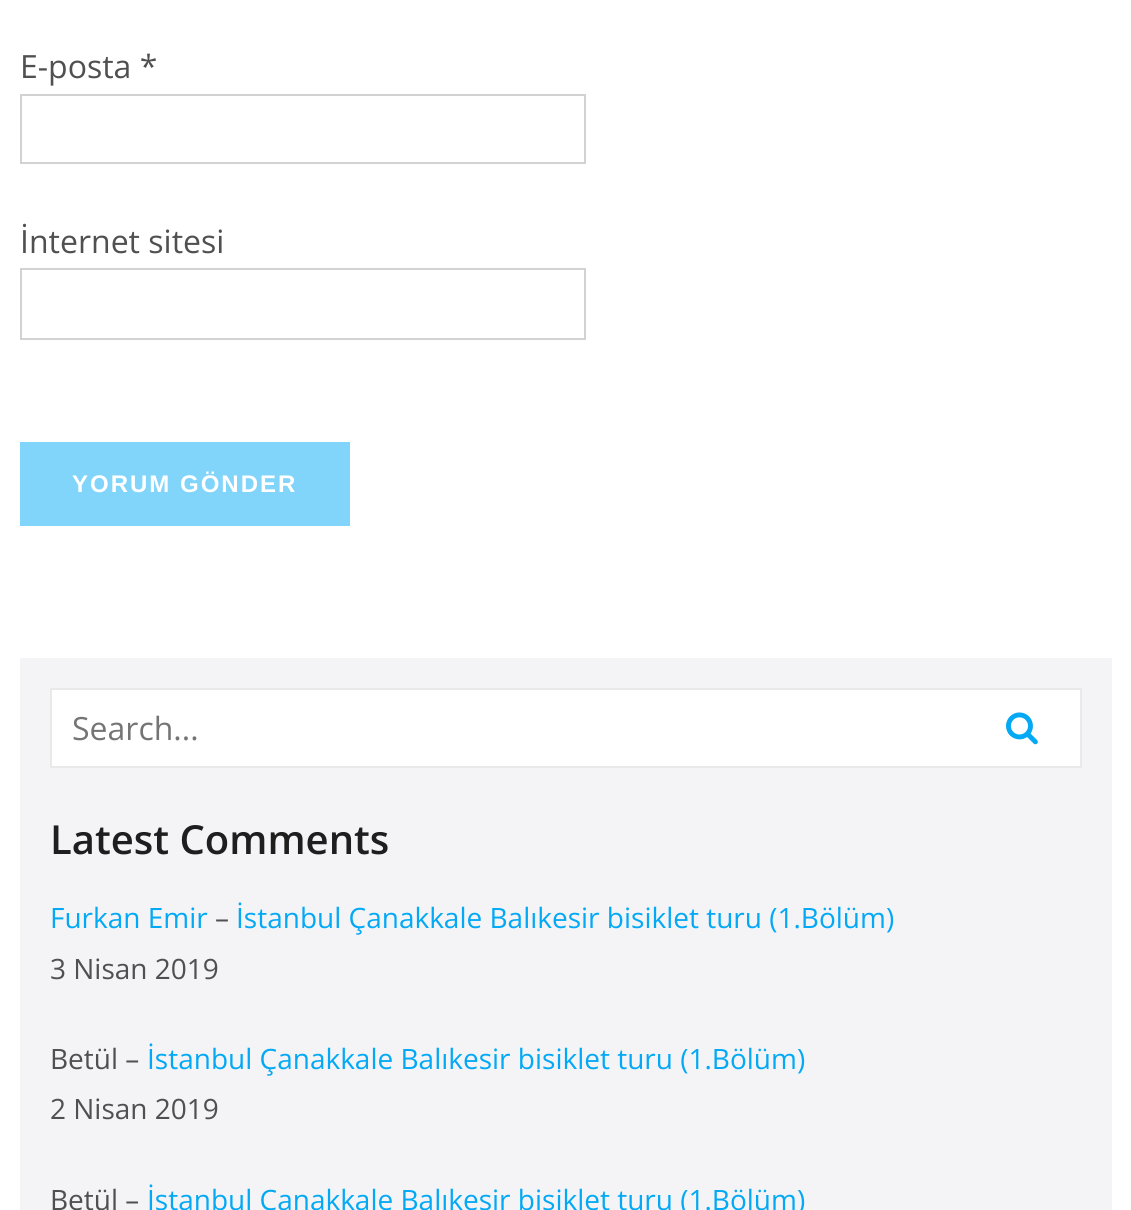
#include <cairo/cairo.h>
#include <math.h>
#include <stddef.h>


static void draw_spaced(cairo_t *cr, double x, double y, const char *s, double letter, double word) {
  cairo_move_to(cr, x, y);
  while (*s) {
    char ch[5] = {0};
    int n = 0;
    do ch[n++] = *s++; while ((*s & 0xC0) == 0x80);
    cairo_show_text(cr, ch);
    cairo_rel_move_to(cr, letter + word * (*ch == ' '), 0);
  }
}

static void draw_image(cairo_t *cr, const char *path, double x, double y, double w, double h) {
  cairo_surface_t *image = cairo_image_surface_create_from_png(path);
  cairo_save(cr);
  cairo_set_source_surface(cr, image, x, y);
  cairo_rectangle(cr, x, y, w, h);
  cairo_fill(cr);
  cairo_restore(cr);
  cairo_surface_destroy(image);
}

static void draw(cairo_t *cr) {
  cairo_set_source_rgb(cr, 1, 1, 1);
  cairo_paint(cr);
  cairo_rectangle(cr, 21, 95, 564, 68);
  cairo_set_source_rgb(cr, 210 / 255.0, 210 / 255.0, 210 / 255.0);
  cairo_stroke(cr);
  cairo_rectangle(cr, 21, 269, 564, 70);
  cairo_stroke(cr);
  cairo_set_source_rgb(cr, 129 / 255.0, 212 / 255.0, 250 / 255.0);
  cairo_rectangle(cr, 20, 442, 330, 84);
  cairo_fill(cr);
  cairo_set_source_rgb(cr, 244 / 255.0, 244 / 255.0, 247 / 255.0);
  cairo_rectangle(cr, 20, 658, 1092, 552);
  cairo_fill(cr);
  cairo_set_source_rgb(cr, 1, 1, 1);
  cairo_rectangle(cr, 50, 688, 1032, 80);
  cairo_fill(cr);
  cairo_set_source_rgb(cr, 233 / 255.0, 233 / 255.0, 233 / 255.0);
  cairo_new_path(cr);
  cairo_move_to(cr, 50, 688);
  cairo_line_to(cr, 962, 688);
  cairo_line_to(cr, 962, 690);
  cairo_line_to(cr, 52, 690);
  cairo_close_path(cr);
  cairo_fill(cr);
  cairo_new_path(cr);
  cairo_move_to(cr, 962, 768);
  cairo_line_to(cr, 50, 768);
  cairo_line_to(cr, 52, 766);
  cairo_line_to(cr, 962, 766);
  cairo_close_path(cr);
  cairo_fill(cr);
  cairo_set_source_rgba(cr, 30 / 255.0, 30 / 255.0, 30 / 255.0, 0.1);
  cairo_new_path(cr);
  cairo_move_to(cr, 50, 768);
  cairo_line_to(cr, 50, 688);
  cairo_line_to(cr, 52, 690);
  cairo_line_to(cr, 52, 766);
  cairo_close_path(cr);
  cairo_fill(cr);
  cairo_set_source_rgb(cr, 233 / 255.0, 233 / 255.0, 233 / 255.0);
  cairo_new_path(cr);
  cairo_move_to(cr, 962, 688);
  cairo_line_to(cr, 1082, 688);
  cairo_line_to(cr, 1080, 690);
  cairo_line_to(cr, 962, 690);
  cairo_close_path(cr);
  cairo_fill(cr);
  cairo_set_source_rgba(cr, 30 / 255.0, 30 / 255.0, 30 / 255.0, 0.1);
  cairo_new_path(cr);
  cairo_move_to(cr, 1082, 688);
  cairo_line_to(cr, 1082, 768);
  cairo_line_to(cr, 1080, 766);
  cairo_line_to(cr, 1080, 690);
  cairo_close_path(cr);
  cairo_fill(cr);
  cairo_new_path(cr);
  cairo_move_to(cr, 1082, 768);
  cairo_line_to(cr, 962, 768);
  cairo_line_to(cr, 962, 766);
  cairo_line_to(cr, 1080, 766);
  cairo_close_path(cr);
  cairo_fill(cr);
  draw_image(cr, "images/1.png", 1006, 712, 32, 33);
  cairo_select_font_face(cr, "Open Sans", CAIRO_FONT_SLANT_NORMAL, CAIRO_FONT_WEIGHT_NORMAL);
  cairo_set_font_size(cr, 32);
  cairo_set_source_rgb(cr, 80 / 255.0, 80 / 255.0, 80 / 255.0);
  cairo_move_to(cr, 20, 78);
  cairo_show_text(cr, "E-posta *");
  cairo_move_to(cr, 20, 253);
  cairo_show_text(cr, "İnternet sitesi");
  cairo_select_font_face(cr, "Liberation Sans", CAIRO_FONT_SLANT_NORMAL, CAIRO_FONT_WEIGHT_BOLD);
  cairo_set_font_size(cr, 24);
  cairo_set_source_rgb(cr, 1, 1, 1);
  draw_spaced(cr, 72, 492, "YORUM GÖNDER", 2, 0);
  cairo_select_font_face(cr, "Open Sans", CAIRO_FONT_SLANT_NORMAL, CAIRO_FONT_WEIGHT_NORMAL);
  cairo_set_font_size(cr, 32);
  cairo_set_source_rgb(cr, 117 / 255.0, 117 / 255.0, 117 / 255.0);
  cairo_move_to(cr, 72, 740);
  cairo_show_text(cr, "Search...");
  cairo_select_font_face(cr, "Open Sans SemiBold", CAIRO_FONT_SLANT_NORMAL, CAIRO_FONT_WEIGHT_NORMAL);
  cairo_set_font_size(cr, 40);
  cairo_set_source_rgb(cr, 30 / 255.0, 30 / 255.0, 30 / 255.0);
  cairo_move_to(cr, 50, 854);
  cairo_show_text(cr, "Latest Comments");
  cairo_select_font_face(cr, "Open Sans", CAIRO_FONT_SLANT_NORMAL, CAIRO_FONT_WEIGHT_NORMAL);
  cairo_set_font_size(cr, 28);
  cairo_set_source_rgb(cr, 3 / 255.0, 169 / 255.0, 244 / 255.0);
  cairo_move_to(cr, 50, 928);
  cairo_show_text(cr, "Furkan Emir");
  cairo_set_source_rgb(cr, 80 / 255.0, 80 / 255.0, 80 / 255.0);
  cairo_move_to(cr, 215, 928);
  cairo_show_text(cr, "–");
  cairo_set_source_rgb(cr, 3 / 255.0, 169 / 255.0, 244 / 255.0);
  cairo_move_to(cr, 236, 928);
  cairo_show_text(cr, "İstanbul Çanakkale Balıkesir bisiklet turu (1.Bölüm)");
  cairo_set_source_rgb(cr, 80 / 255.0, 80 / 255.0, 80 / 255.0);
  cairo_move_to(cr, 50, 979);
  cairo_show_text(cr, "3 Nisan 2019");
  cairo_move_to(cr, 50, 1069);
  cairo_show_text(cr, "Betül –");
  cairo_set_source_rgb(cr, 3 / 255.0, 169 / 255.0, 244 / 255.0);
  cairo_move_to(cr, 147, 1069);
  cairo_show_text(cr, "İstanbul Çanakkale Balıkesir bisiklet turu (1.Bölüm)");
  cairo_set_source_rgb(cr, 80 / 255.0, 80 / 255.0, 80 / 255.0);
  cairo_move_to(cr, 50, 1119);
  cairo_show_text(cr, "2 Nisan 2019");
  cairo_move_to(cr, 50, 1210);
  cairo_show_text(cr, "Betül –");
  cairo_set_source_rgb(cr, 3 / 255.0, 169 / 255.0, 244 / 255.0);
  cairo_move_to(cr, 147, 1210);
  cairo_show_text(cr, "İstanbul Çanakkale Balıkesir bisiklet turu (1.Bölüm)");
}

int main(void) {
  cairo_surface_t *surface = cairo_image_surface_create(CAIRO_FORMAT_RGB24, 1131, 1210);
  cairo_t *cr = cairo_create(surface);
  cairo_font_options_t *options = cairo_font_options_create();
  cairo_font_options_set_hint_metrics(options, CAIRO_HINT_METRICS_OFF);
  cairo_font_options_set_hint_style(options, CAIRO_HINT_STYLE_NONE);
  cairo_set_font_options(cr, options);
  cairo_set_miter_limit(cr, 4);
  draw(cr);
  cairo_surface_write_to_png(surface, "out.png");
  cairo_font_options_destroy(options);
  cairo_destroy(cr);
  cairo_surface_destroy(surface);
  return 0;
}
